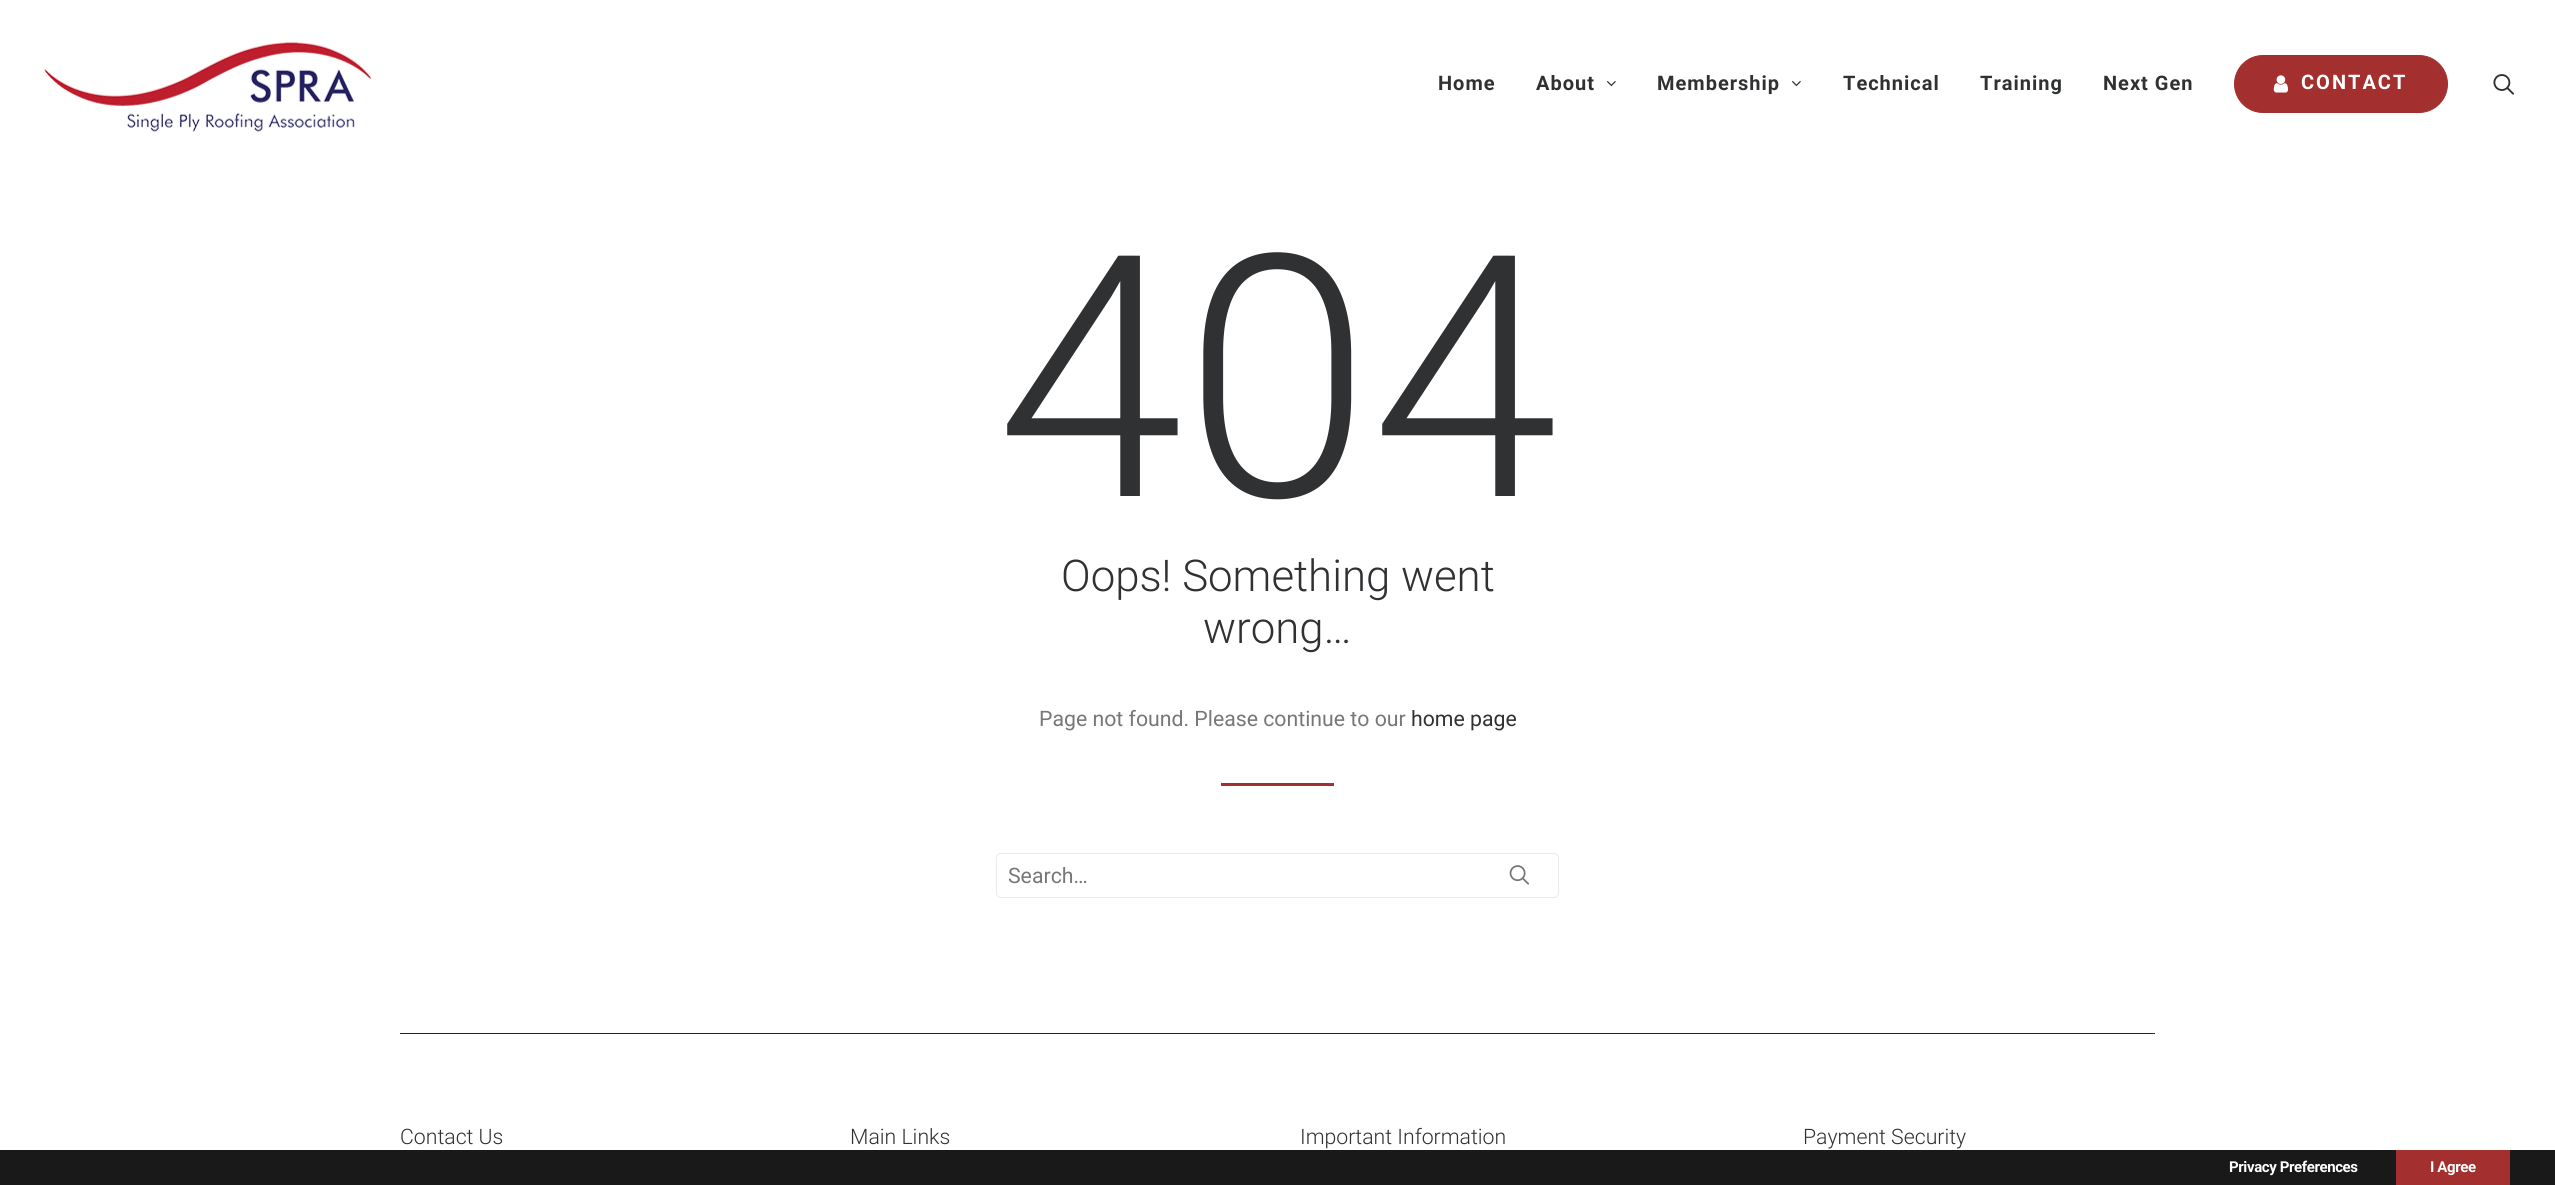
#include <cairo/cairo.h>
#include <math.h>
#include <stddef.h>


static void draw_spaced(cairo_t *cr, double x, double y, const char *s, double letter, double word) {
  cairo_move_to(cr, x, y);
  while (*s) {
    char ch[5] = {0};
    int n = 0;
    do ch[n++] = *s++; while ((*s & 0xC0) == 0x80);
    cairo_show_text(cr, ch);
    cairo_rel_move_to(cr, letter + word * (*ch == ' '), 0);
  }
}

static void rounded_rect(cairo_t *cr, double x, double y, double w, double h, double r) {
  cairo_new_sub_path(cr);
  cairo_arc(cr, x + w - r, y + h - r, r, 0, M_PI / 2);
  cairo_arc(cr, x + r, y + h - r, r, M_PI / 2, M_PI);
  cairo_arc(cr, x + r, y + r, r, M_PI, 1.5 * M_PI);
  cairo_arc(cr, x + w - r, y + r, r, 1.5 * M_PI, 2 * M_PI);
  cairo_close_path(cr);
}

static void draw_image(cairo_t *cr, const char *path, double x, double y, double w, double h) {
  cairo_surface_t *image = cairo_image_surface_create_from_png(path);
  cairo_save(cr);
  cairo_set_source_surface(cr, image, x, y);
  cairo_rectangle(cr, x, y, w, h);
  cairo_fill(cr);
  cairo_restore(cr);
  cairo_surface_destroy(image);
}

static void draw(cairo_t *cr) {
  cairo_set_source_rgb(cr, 1, 1, 1);
  cairo_paint(cr);
  draw_image(cr, "images/1.png", 44, 41, 328, 91);
  draw_image(cr, "images/2.png", 1607, 81, 9, 6);
  draw_image(cr, "images/2.png", 1792, 81, 9, 6);
  cairo_set_source_rgb(cr, 163 / 255.0, 47 / 255.0, 47 / 255.0);
  rounded_rect(cr, 2234.5, 55.5, 213, 57, 28.5);
  cairo_fill_preserve(cr);
  cairo_set_line_width(cr, 1);
  cairo_stroke(cr);
  draw_image(cr, "images/3.png", 2273, 75, 15, 18);
  draw_image(cr, "images/4.png", 2493, 74, 22, 21);
  cairo_rectangle(cr, 1221, 783, 113, 3);
  cairo_fill(cr);
  rounded_rect(cr, 996.5, 853.5, 562, 44, 4.5);
  cairo_set_source_rgb(cr, 234 / 255.0, 234 / 255.0, 234 / 255.0);
  cairo_stroke(cr);
  draw_image(cr, "images/5.png", 1509, 865, 21, 20);
  cairo_set_source_rgb(cr, 31 / 255.0, 33 / 255.0, 71 / 255.0);
  cairo_rectangle(cr, 400, 1033, 1755, 1);
  cairo_fill(cr);
  cairo_set_source_rgb(cr, 25 / 255.0, 25 / 255.0, 25 / 255.0);
  cairo_rectangle(cr, 0, 1150, 2555, 35);
  cairo_fill(cr);
  cairo_set_source_rgb(cr, 163 / 255.0, 47 / 255.0, 47 / 255.0);
  cairo_rectangle(cr, 2396, 1150, 114, 35);
  cairo_fill(cr);
  cairo_select_font_face(cr, "Roboto", CAIRO_FONT_SLANT_NORMAL, CAIRO_FONT_WEIGHT_BOLD);
  cairo_set_font_size(cr, 20);
  cairo_set_source_rgb(cr, 48 / 255.0, 49 / 255.0, 51 / 255.0);
  draw_spaced(cr, 1438, 90, "Home", 1, 0);
  draw_spaced(cr, 1536, 90, "About", 1, 0);
  draw_spaced(cr, 1657, 90, "Membership", 1, 0);
  draw_spaced(cr, 1843, 90, "Technical", 1, 0);
  draw_spaced(cr, 1980, 90, "Training", 1, 0);
  draw_spaced(cr, 2103, 90, "Next Gen", 1, 0);
  cairo_set_source_rgb(cr, 1, 1, 1);
  draw_spaced(cr, 2301, 89, "CONTACT", 2, 0);
  cairo_select_font_face(cr, "Roboto Light", CAIRO_FONT_SLANT_NORMAL, CAIRO_FONT_WEIGHT_NORMAL);
  cairo_set_font_size(cr, 338);
  cairo_set_source_rgb(cr, 48 / 255.0, 49 / 255.0, 51 / 255.0);
  cairo_move_to(cr, 996, 496);
  cairo_show_text(cr, "404");
  cairo_set_font_size(cr, 43.75);
  cairo_move_to(cr, 1061, 591);
  cairo_show_text(cr, "Oops! Something went");
  cairo_move_to(cr, 1203, 643);
  cairo_show_text(cr, "wrong…");
  cairo_select_font_face(cr, "Roboto", CAIRO_FONT_SLANT_NORMAL, CAIRO_FONT_WEIGHT_NORMAL);
  cairo_set_font_size(cr, 21.25);
  cairo_set_source_rgb(cr, 119 / 255.0, 119 / 255.0, 119 / 255.0);
  cairo_move_to(cr, 1039, 726);
  cairo_show_text(cr, "Page not found. Please continue to our");
  cairo_set_source_rgb(cr, 48 / 255.0, 49 / 255.0, 51 / 255.0);
  cairo_move_to(cr, 1411, 726);
  cairo_show_text(cr, "home page");
  cairo_set_source_rgb(cr, 119 / 255.0, 119 / 255.0, 119 / 255.0);
  cairo_move_to(cr, 1008, 883);
  cairo_show_text(cr, "Search…");
  cairo_select_font_face(cr, "Roboto Light", CAIRO_FONT_SLANT_NORMAL, CAIRO_FONT_WEIGHT_NORMAL);
  cairo_set_source_rgb(cr, 48 / 255.0, 49 / 255.0, 51 / 255.0);
  cairo_move_to(cr, 400, 1144);
  cairo_show_text(cr, "Contact Us");
  cairo_move_to(cr, 850, 1144);
  cairo_show_text(cr, "Main Links");
  cairo_move_to(cr, 1300, 1144);
  cairo_show_text(cr, "Important Information");
  cairo_move_to(cr, 1803, 1144);
  cairo_show_text(cr, "Payment Security");
  cairo_select_font_face(cr, "Roboto", CAIRO_FONT_SLANT_NORMAL, CAIRO_FONT_WEIGHT_BOLD);
  cairo_set_font_size(cr, 15);
  cairo_set_source_rgb(cr, 1, 1, 1);
  draw_spaced(cr, 2229, 1172, "Privacy Preferences", -0.4, 0);
  draw_spaced(cr, 2430, 1172, "I Agree", -0.4, 0);
}

int main(void) {
  cairo_surface_t *surface = cairo_image_surface_create(CAIRO_FORMAT_RGB24, 2555, 1185);
  cairo_t *cr = cairo_create(surface);
  cairo_font_options_t *options = cairo_font_options_create();
  cairo_font_options_set_hint_metrics(options, CAIRO_HINT_METRICS_OFF);
  cairo_font_options_set_hint_style(options, CAIRO_HINT_STYLE_NONE);
  cairo_set_font_options(cr, options);
  cairo_set_miter_limit(cr, 4);
  draw(cr);
  cairo_surface_write_to_png(surface, "out.png");
  cairo_font_options_destroy(options);
  cairo_destroy(cr);
  cairo_surface_destroy(surface);
  return 0;
}
